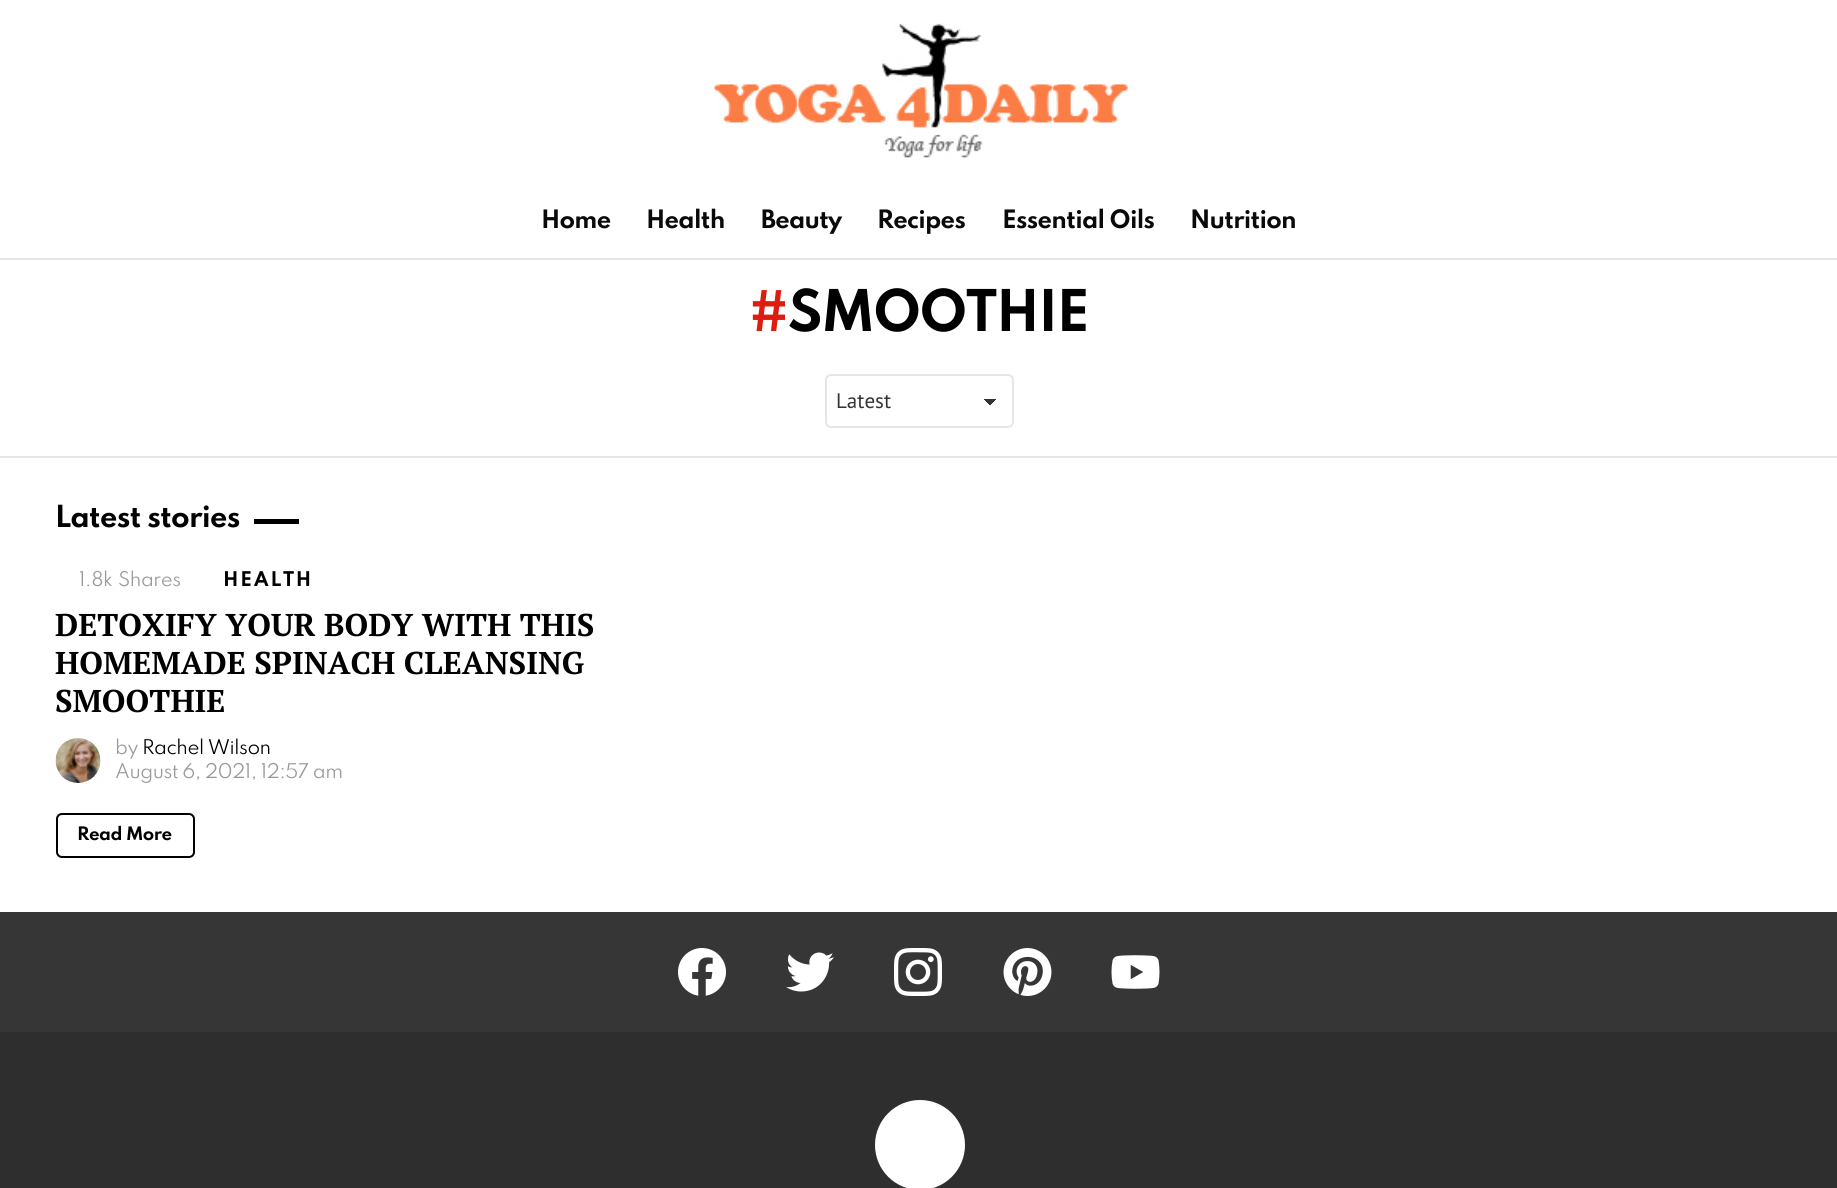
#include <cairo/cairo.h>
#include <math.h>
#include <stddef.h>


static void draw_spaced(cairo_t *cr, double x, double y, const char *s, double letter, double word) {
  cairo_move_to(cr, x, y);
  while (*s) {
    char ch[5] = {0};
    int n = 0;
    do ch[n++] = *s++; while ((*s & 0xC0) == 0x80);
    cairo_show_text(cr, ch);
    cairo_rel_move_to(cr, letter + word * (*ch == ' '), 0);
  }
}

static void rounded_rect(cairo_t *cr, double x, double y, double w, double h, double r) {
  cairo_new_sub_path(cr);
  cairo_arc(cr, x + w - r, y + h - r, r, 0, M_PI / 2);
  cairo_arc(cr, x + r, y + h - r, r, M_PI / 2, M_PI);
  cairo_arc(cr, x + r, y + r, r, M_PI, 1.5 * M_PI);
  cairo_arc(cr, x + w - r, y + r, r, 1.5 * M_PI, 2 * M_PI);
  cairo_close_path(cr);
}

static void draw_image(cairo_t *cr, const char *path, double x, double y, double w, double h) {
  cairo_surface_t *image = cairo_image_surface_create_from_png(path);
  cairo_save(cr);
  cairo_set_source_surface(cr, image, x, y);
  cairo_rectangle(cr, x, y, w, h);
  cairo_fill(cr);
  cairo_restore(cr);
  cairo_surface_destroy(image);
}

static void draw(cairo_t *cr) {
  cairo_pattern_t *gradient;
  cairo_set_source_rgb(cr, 1, 1, 1);
  cairo_paint(cr);
  draw_image(cr, "images/1.png", 714, 23, 414, 135);
  cairo_set_source_rgb(cr, 230 / 255.0, 230 / 255.0, 230 / 255.0);
  cairo_rectangle(cr, 0, 258, 1837, 2);
  cairo_fill(cr);
  gradient = cairo_pattern_create_linear(990, 399, 997, 405);
  cairo_pattern_add_color_stop_rgba(gradient, 0.5, 51 / 255.0, 51 / 255.0, 51 / 255.0, 1);
  cairo_pattern_add_color_stop_rgba(gradient, 0.5, 1, 1, 1, 1);
  cairo_set_source(cr, gradient);
  cairo_pattern_destroy(gradient);
  cairo_rectangle(cr, 990, 399, 8, 6);
  cairo_fill(cr);
  gradient = cairo_pattern_create_linear(983, 405, 990, 399);
  cairo_pattern_add_color_stop_rgba(gradient, 0.5, 1, 1, 1, 1);
  cairo_pattern_add_color_stop_rgba(gradient, 0.5, 51 / 255.0, 51 / 255.0, 51 / 255.0, 1);
  cairo_set_source(cr, gradient);
  cairo_pattern_destroy(gradient);
  cairo_rectangle(cr, 983, 399, 7, 6);
  cairo_fill(cr);
  rounded_rect(cr, 826, 375, 187, 52, 5);
  cairo_set_source_rgb(cr, 230 / 255.0, 230 / 255.0, 230 / 255.0);
  cairo_stroke(cr);
  cairo_rectangle(cr, 0, 456, 1837, 2);
  cairo_fill(cr);
  cairo_set_source_rgb(cr, 0, 0, 0);
  cairo_rectangle(cr, 254, 519, 45, 5);
  cairo_fill(cr);
  draw_image(cr, "images/2.png", 55, 738, 46, 45);
  rounded_rect(cr, 57, 814, 137, 43, 5);
  cairo_stroke(cr);
  cairo_set_source_rgb(cr, 54 / 255.0, 54 / 255.0, 54 / 255.0);
  cairo_rectangle(cr, 0, 912, 1837, 120);
  cairo_fill(cr);
  draw_image(cr, "images/3.png", 678, 948, 48, 48);
  draw_image(cr, "images/4.png", 786, 952, 48, 40);
  draw_image(cr, "images/5.png", 894, 948, 48, 48);
  draw_image(cr, "images/6.png", 1003, 948, 49, 48);
  draw_image(cr, "images/7.png", 1111, 955, 49, 34);
  cairo_set_source_rgb(cr, 46 / 255.0, 46 / 255.0, 46 / 255.0);
  cairo_rectangle(cr, 0, 1032, 1837, 156);
  cairo_fill(cr);
  cairo_set_source_rgb(cr, 1, 1, 1);
  cairo_arc(cr, 920, 1145, 45, 0, 2 * M_PI);
  cairo_fill(cr);
  cairo_select_font_face(cr, "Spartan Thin", CAIRO_FONT_SLANT_NORMAL, CAIRO_FONT_WEIGHT_BOLD);
  cairo_set_font_size(cr, 22.5);
  cairo_set_source_rgb(cr, 10 / 255.0, 10 / 255.0, 10 / 255.0);
  draw_spaced(cr, 541, 228, "Home", -0.75, 0);
  draw_spaced(cr, 646, 228, "Health", -0.75, 0);
  draw_spaced(cr, 761, 228, "Beauty", -0.75, 0);
  draw_spaced(cr, 877, 228, "Recipes", -0.75, 0);
  draw_spaced(cr, 1002, 228, "Essential Oils", -0.75, 0);
  draw_spaced(cr, 1190, 228, "Nutrition", -0.75, 0);
  cairo_set_font_size(cr, 51);
  cairo_set_source_rgb(cr, 221 / 255.0, 29 / 255.0, 15 / 255.0);
  draw_spaced(cr, 749, 331, "#", -1.5, 0);
  cairo_set_source_rgb(cr, 0, 0, 0);
  draw_spaced(cr, 788, 331, "SMOOTHIE", -1.5, 0);
  cairo_select_font_face(cr, "PT Sans", CAIRO_FONT_SLANT_NORMAL, CAIRO_FONT_WEIGHT_NORMAL);
  cairo_set_font_size(cr, 21);
  cairo_set_source_rgb(cr, 51 / 255.0, 51 / 255.0, 51 / 255.0);
  cairo_move_to(cr, 836, 408);
  cairo_show_text(cr, "Latest");
  cairo_select_font_face(cr, "Spartan Thin", CAIRO_FONT_SLANT_NORMAL, CAIRO_FONT_WEIGHT_BOLD);
  cairo_set_font_size(cr, 27);
  cairo_set_source_rgb(cr, 0, 0, 0);
  draw_spaced(cr, 55, 527, "Latest stories", -0.75, 0);
  cairo_select_font_face(cr, "Spartan Thin", CAIRO_FONT_SLANT_NORMAL, CAIRO_FONT_WEIGHT_NORMAL);
  cairo_set_font_size(cr, 18);
  cairo_set_source_rgb(cr, 153 / 255.0, 153 / 255.0, 153 / 255.0);
  draw_spaced(cr, 79, 586, "1.8k", -0.5, 0);
  draw_spaced(cr, 118, 586, "Shares", -0.5, 0);
  cairo_select_font_face(cr, "Spartan Thin", CAIRO_FONT_SLANT_NORMAL, CAIRO_FONT_WEIGHT_BOLD);
  cairo_set_source_rgb(cr, 0, 0, 0);
  draw_spaced(cr, 223, 586, "HEALTH", 1.75, 0);
  cairo_select_font_face(cr, "PT Serif", CAIRO_FONT_SLANT_NORMAL, CAIRO_FONT_WEIGHT_BOLD);
  cairo_set_font_size(cr, 31.5);
  cairo_move_to(cr, 55, 636);
  cairo_show_text(cr, "DETOXIFY YOUR BODY WITH THIS");
  cairo_move_to(cr, 55, 674);
  cairo_show_text(cr, "HOMEMADE SPINACH CLEANSING");
  cairo_move_to(cr, 55, 712);
  cairo_show_text(cr, "SMOOTHIE");
  cairo_select_font_face(cr, "Spartan Thin", CAIRO_FONT_SLANT_NORMAL, CAIRO_FONT_WEIGHT_NORMAL);
  cairo_set_font_size(cr, 18);
  cairo_set_source_rgb(cr, 153 / 255.0, 153 / 255.0, 153 / 255.0);
  draw_spaced(cr, 115, 754, "by", -0.5, 0);
  cairo_set_source_rgb(cr, 0, 0, 0);
  draw_spaced(cr, 142, 754, "Rachel Wilson", -0.5, 0);
  cairo_set_source_rgb(cr, 153 / 255.0, 153 / 255.0, 153 / 255.0);
  draw_spaced(cr, 115, 778, "August 6, 2021, 12:57 am", -0.5, 0);
  cairo_select_font_face(cr, "Spartan Thin", CAIRO_FONT_SLANT_NORMAL, CAIRO_FONT_WEIGHT_BOLD);
  cairo_set_font_size(cr, 16.5);
  cairo_set_source_rgb(cr, 0, 0, 0);
  draw_spaced(cr, 77, 840, "Read More", -0.5, 0);
}

int main(void) {
  cairo_surface_t *surface = cairo_image_surface_create(CAIRO_FORMAT_RGB24, 1837, 1188);
  cairo_t *cr = cairo_create(surface);
  cairo_font_options_t *options = cairo_font_options_create();
  cairo_font_options_set_hint_metrics(options, CAIRO_HINT_METRICS_OFF);
  cairo_font_options_set_hint_style(options, CAIRO_HINT_STYLE_NONE);
  cairo_set_font_options(cr, options);
  cairo_set_miter_limit(cr, 4);
  draw(cr);
  cairo_surface_write_to_png(surface, "out.png");
  cairo_font_options_destroy(options);
  cairo_destroy(cr);
  cairo_surface_destroy(surface);
  return 0;
}
